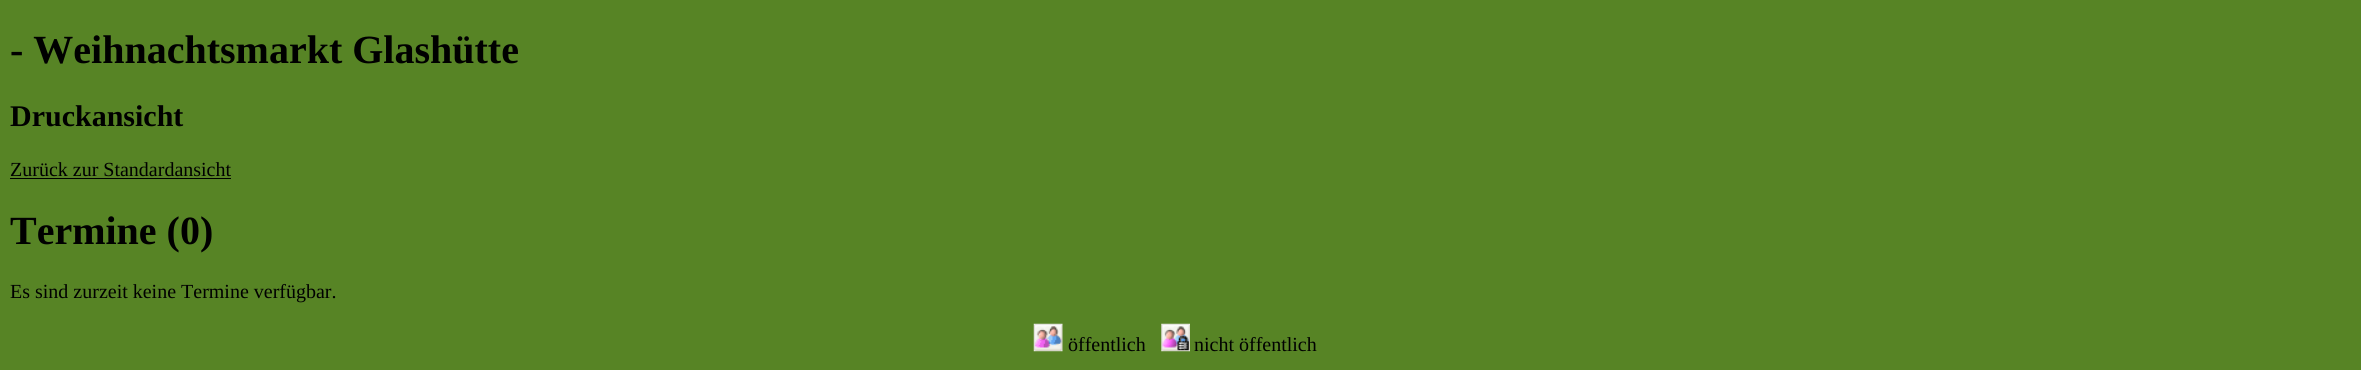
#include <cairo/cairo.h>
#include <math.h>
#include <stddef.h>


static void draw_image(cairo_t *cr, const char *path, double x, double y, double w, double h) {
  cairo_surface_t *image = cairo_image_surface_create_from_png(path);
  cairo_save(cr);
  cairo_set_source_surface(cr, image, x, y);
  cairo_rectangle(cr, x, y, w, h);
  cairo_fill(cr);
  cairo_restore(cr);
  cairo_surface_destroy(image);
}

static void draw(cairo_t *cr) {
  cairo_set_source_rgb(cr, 87 / 255.0, 132 / 255.0, 37 / 255.0);
  cairo_paint(cr);
  cairo_set_source_rgb(cr, 0, 0, 0);
  cairo_rectangle(cr, 10, 178, 221, 1);
  cairo_fill(cr);
  draw_image(cr, "images/1.png", 1033, 323, 30, 29);
  draw_image(cr, "images/2.png", 1161, 323, 29, 29);
  cairo_select_font_face(cr, "Liberation Serif", CAIRO_FONT_SLANT_NORMAL, CAIRO_FONT_WEIGHT_BOLD);
  cairo_set_font_size(cr, 40);
  cairo_move_to(cr, 10, 63);
  cairo_show_text(cr, "- Weihnachtsmarkt Glashütte");
  cairo_set_font_size(cr, 30);
  cairo_move_to(cr, 10, 126);
  cairo_show_text(cr, "Druckansicht");
  cairo_select_font_face(cr, "Liberation Serif", CAIRO_FONT_SLANT_NORMAL, CAIRO_FONT_WEIGHT_NORMAL);
  cairo_set_font_size(cr, 20);
  cairo_move_to(cr, 10, 176);
  cairo_show_text(cr, "Zurück zur Standardansicht");
  cairo_select_font_face(cr, "Liberation Serif", CAIRO_FONT_SLANT_NORMAL, CAIRO_FONT_WEIGHT_BOLD);
  cairo_set_font_size(cr, 40);
  cairo_move_to(cr, 10, 244);
  cairo_show_text(cr, "Termine (0)");
  cairo_select_font_face(cr, "Liberation Serif", CAIRO_FONT_SLANT_NORMAL, CAIRO_FONT_WEIGHT_NORMAL);
  cairo_set_font_size(cr, 20);
  cairo_move_to(cr, 10, 298);
  cairo_show_text(cr, "Es sind zurzeit keine Termine verfügbar.");
  cairo_move_to(cr, 1068, 351);
  cairo_show_text(cr, "öffentlich");
  cairo_move_to(cr, 1194, 351);
  cairo_show_text(cr, "nicht öffentlich");
}

int main(void) {
  cairo_surface_t *surface = cairo_image_surface_create(CAIRO_FORMAT_RGB24, 2361, 370);
  cairo_t *cr = cairo_create(surface);
  cairo_font_options_t *options = cairo_font_options_create();
  cairo_font_options_set_hint_metrics(options, CAIRO_HINT_METRICS_OFF);
  cairo_font_options_set_hint_style(options, CAIRO_HINT_STYLE_NONE);
  cairo_set_font_options(cr, options);
  cairo_set_miter_limit(cr, 4);
  draw(cr);
  cairo_surface_write_to_png(surface, "out.png");
  cairo_font_options_destroy(options);
  cairo_destroy(cr);
  cairo_surface_destroy(surface);
  return 0;
}
